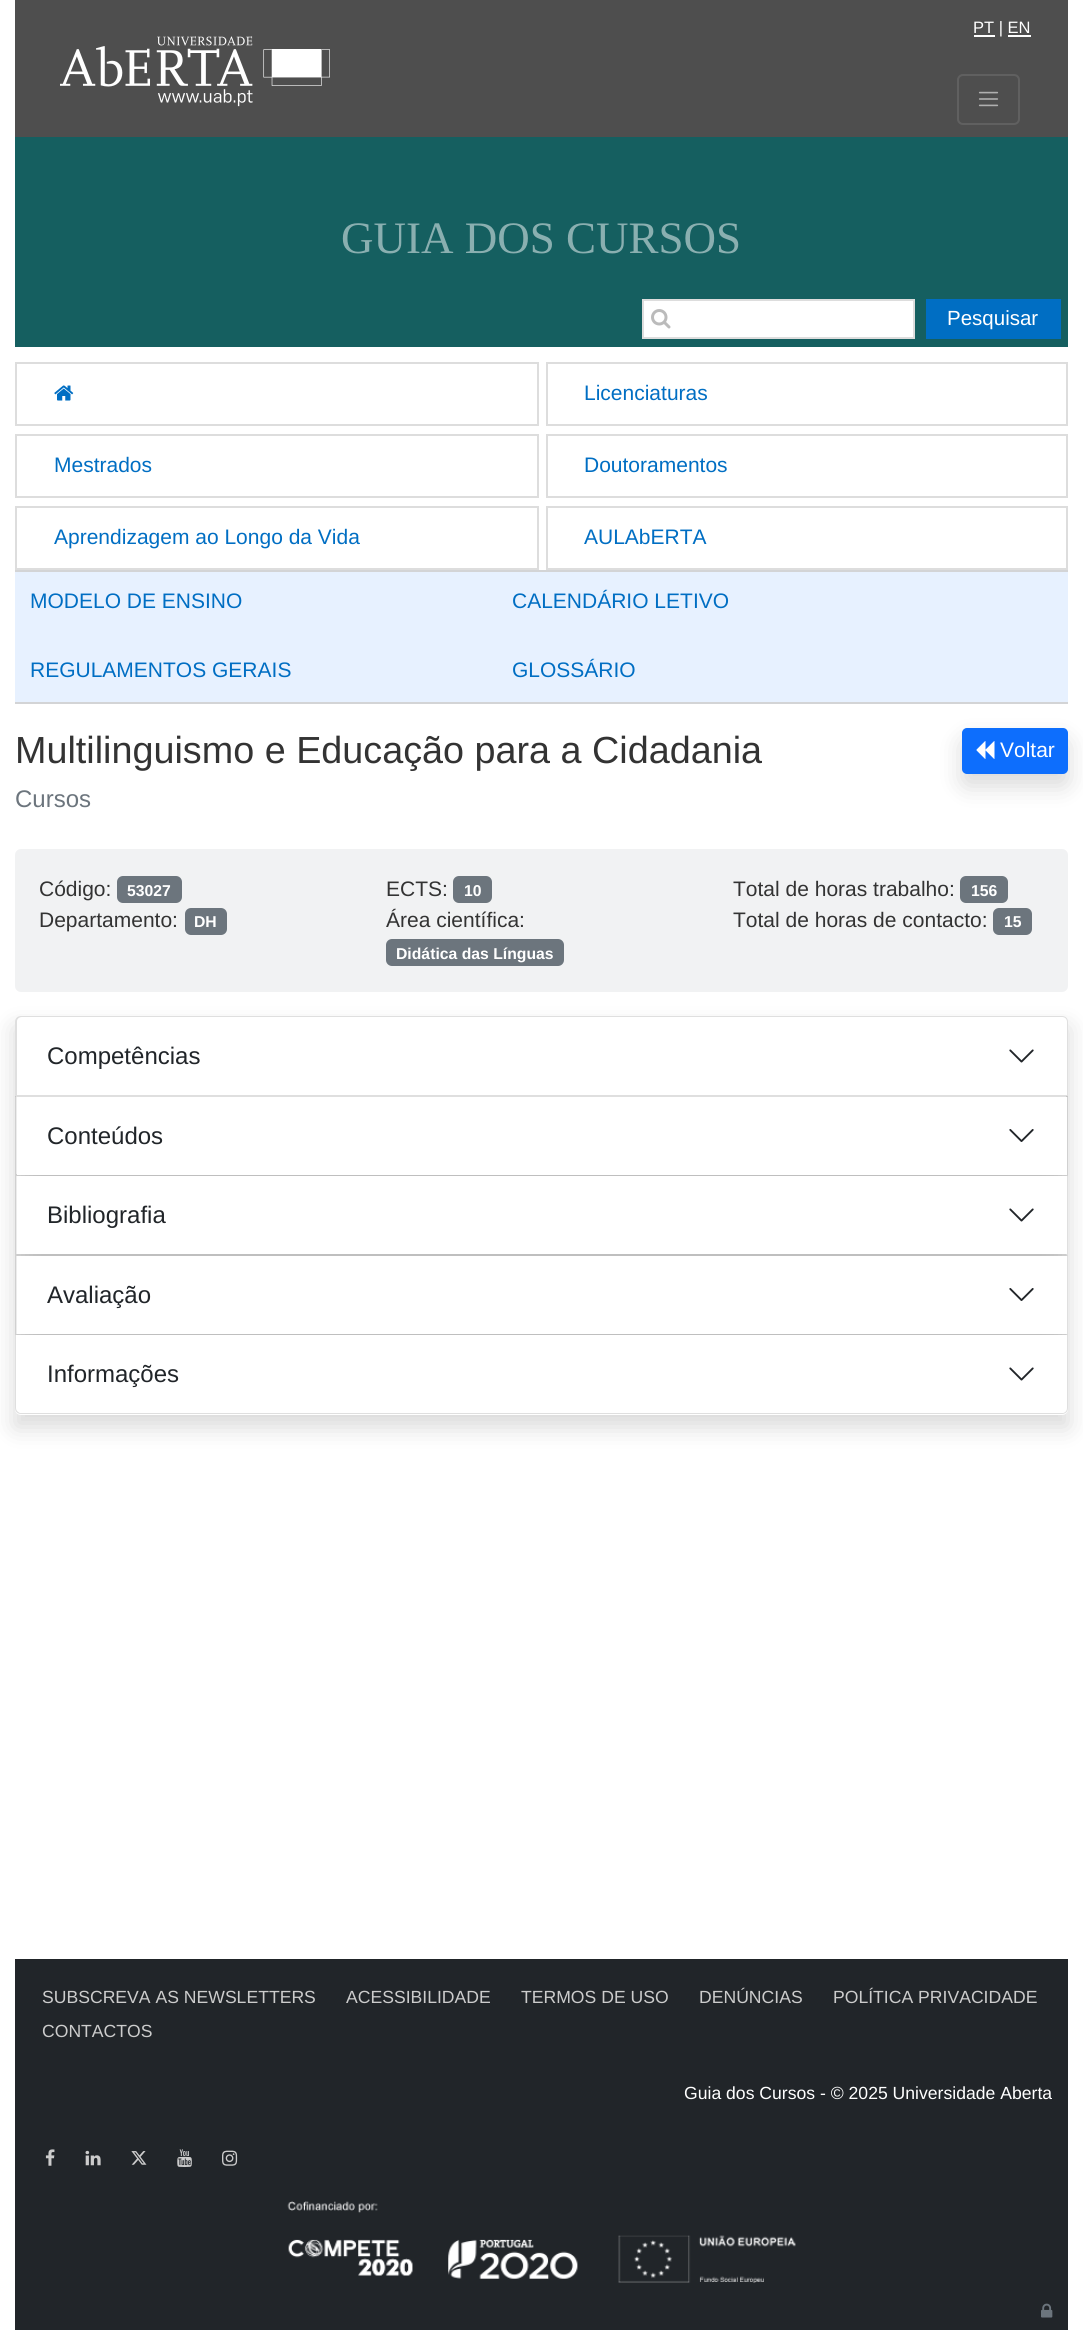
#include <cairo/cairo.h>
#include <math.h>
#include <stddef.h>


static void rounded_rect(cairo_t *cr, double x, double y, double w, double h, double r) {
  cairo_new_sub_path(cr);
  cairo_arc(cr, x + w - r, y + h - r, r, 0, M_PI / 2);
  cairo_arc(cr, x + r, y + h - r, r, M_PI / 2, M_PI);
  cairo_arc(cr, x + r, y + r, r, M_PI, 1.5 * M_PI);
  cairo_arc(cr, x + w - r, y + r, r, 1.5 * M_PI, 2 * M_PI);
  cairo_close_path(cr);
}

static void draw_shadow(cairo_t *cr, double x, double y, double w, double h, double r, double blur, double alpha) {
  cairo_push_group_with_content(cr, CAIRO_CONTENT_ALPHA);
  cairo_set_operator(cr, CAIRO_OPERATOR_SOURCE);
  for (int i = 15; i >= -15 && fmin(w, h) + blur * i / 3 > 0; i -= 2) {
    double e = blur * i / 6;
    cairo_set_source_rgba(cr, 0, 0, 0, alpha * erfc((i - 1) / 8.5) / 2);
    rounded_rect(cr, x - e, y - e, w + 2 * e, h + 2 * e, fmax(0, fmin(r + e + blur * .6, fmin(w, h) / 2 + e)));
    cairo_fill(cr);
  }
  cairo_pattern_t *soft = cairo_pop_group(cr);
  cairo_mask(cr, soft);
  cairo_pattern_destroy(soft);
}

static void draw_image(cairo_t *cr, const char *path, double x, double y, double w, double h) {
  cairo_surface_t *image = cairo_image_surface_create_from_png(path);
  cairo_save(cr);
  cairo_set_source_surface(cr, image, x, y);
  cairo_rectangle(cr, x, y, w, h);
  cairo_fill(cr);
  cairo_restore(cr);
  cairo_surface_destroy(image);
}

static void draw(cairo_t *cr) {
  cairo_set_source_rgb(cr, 1, 1, 1);
  cairo_paint(cr);
  cairo_set_source_rgb(cr, 78 / 255.0, 78 / 255.0, 78 / 255.0);
  cairo_rectangle(cr, 15, 0, 1053, 137);
  cairo_fill(cr);
  cairo_set_source_rgb(cr, 1, 1, 1);
  cairo_rectangle(cr, 974, 35, 21, 2);
  cairo_fill(cr);
  cairo_rectangle(cr, 1008, 35, 23, 2);
  cairo_fill(cr);
  draw_image(cr, "images/1.png", 60, 36, 270, 71);
  rounded_rect(cr, 958, 75, 61, 49, 5);
  cairo_set_source_rgb(cr, 96 / 255.0, 96 / 255.0, 96 / 255.0);
  cairo_stroke(cr);
  draw_image(cr, "images/2.png", 978, 91, 21, 16);
  cairo_set_source_rgb(cr, 21 / 255.0, 95 / 255.0, 96 / 255.0);
  cairo_rectangle(cr, 15, 137, 1053, 210);
  cairo_fill(cr);
  cairo_set_source_rgb(cr, 1, 1, 1);
  cairo_rectangle(cr, 643, 300, 271, 38);
  cairo_fill_preserve(cr);
  cairo_set_source_rgb(cr, 221 / 255.0, 221 / 255.0, 221 / 255.0);
  cairo_stroke(cr);
  draw_image(cr, "images/3.png", 651, 309, 20, 20);
  cairo_set_source_rgb(cr, 0, 110 / 255.0, 195 / 255.0);
  cairo_rectangle(cr, 926, 299, 135, 40);
  cairo_fill(cr);
  cairo_rectangle(cr, 16, 363, 522, 62);
  cairo_set_source_rgb(cr, 221 / 255.0, 221 / 255.0, 221 / 255.0);
  cairo_stroke(cr);
  draw_image(cr, "images/4.png", 54, 385, 20, 16);
  cairo_rectangle(cr, 547, 363, 520, 62);
  cairo_stroke(cr);
  cairo_rectangle(cr, 16, 435, 522, 62);
  cairo_stroke(cr);
  cairo_rectangle(cr, 547, 435, 520, 62);
  cairo_stroke(cr);
  cairo_rectangle(cr, 16, 507, 522, 62);
  cairo_stroke(cr);
  cairo_rectangle(cr, 547, 507, 520, 62);
  cairo_stroke(cr);
  cairo_set_source_rgb(cr, 231 / 255.0, 241 / 255.0, 1);
  cairo_rectangle(cr, 15, 572, 1053, 130);
  cairo_fill(cr);
  cairo_set_source_rgb(cr, 211 / 255.0, 212 / 255.0, 214 / 255.0);
  cairo_rectangle(cr, 15, 570, 1053, 2);
  cairo_fill(cr);
  cairo_set_source_rgb(cr, 0, 0, 0);
  draw_shadow(cr, 962, 740, 106, 46, 5, 12, 0.15);
  cairo_set_source_rgb(cr, 211 / 255.0, 212 / 255.0, 214 / 255.0);
  cairo_rectangle(cr, 15, 702, 1053, 2);
  cairo_fill(cr);
  cairo_set_source_rgb(cr, 13 / 255.0, 110 / 255.0, 253 / 255.0);
  rounded_rect(cr, 963, 729, 104, 44, 4);
  cairo_fill_preserve(cr);
  cairo_stroke(cr);
  draw_image(cr, "images/5.png", 976, 741, 19, 18);
  cairo_set_source_rgb(cr, 0, 0, 0);
  draw_shadow(cr, 15, 1028, 1053, 399, 0, 12, 0.15);
  cairo_set_source_rgb(cr, 241 / 255.0, 242 / 255.0, 243 / 255.0);
  rounded_rect(cr, 15, 849, 1053, 143, 6);
  cairo_fill(cr);
  cairo_set_source_rgb(cr, 108 / 255.0, 117 / 255.0, 125 / 255.0);
  rounded_rect(cr, 117, 876, 65, 27, 6);
  cairo_fill(cr);
  rounded_rect(cr, 185, 908, 42, 27, 6);
  cairo_fill(cr);
  rounded_rect(cr, 453, 876, 39, 27, 6);
  cairo_fill(cr);
  rounded_rect(cr, 386, 939, 178, 27, 6);
  cairo_fill(cr);
  rounded_rect(cr, 960, 876, 48, 27, 6);
  cairo_fill(cr);
  rounded_rect(cr, 993, 908, 39, 27, 6);
  cairo_fill(cr);
  cairo_new_path(cr);
  cairo_move_to(cr, 21, 1017);
  cairo_line_to(cr, 1062, 1017);
  cairo_curve_to(cr, 1065, 1017, 1067, 1019, 1067, 1022);
  cairo_line_to(cr, 1067, 1096);
  cairo_line_to(cr, 16, 1096);
  cairo_line_to(cr, 16, 1022);
  cairo_curve_to(cr, 16, 1019, 18, 1017, 21, 1017);
  cairo_close_path(cr);
  cairo_set_source_rgb(cr, 223 / 255.0, 223 / 255.0, 223 / 255.0);
  cairo_stroke(cr);
  cairo_set_source_rgb(cr, 1, 1, 1);
  cairo_new_path(cr);
  cairo_move_to(cr, 22, 1017);
  cairo_line_to(cr, 1062, 1017);
  cairo_curve_to(cr, 1065, 1017, 1067, 1019, 1067, 1022);
  cairo_line_to(cr, 1067, 1095);
  cairo_line_to(cr, 17, 1095);
  cairo_line_to(cr, 17, 1022);
  cairo_curve_to(cr, 17, 1019, 19, 1017, 22, 1017);
  cairo_close_path(cr);
  cairo_fill(cr);
  draw_image(cr, "images/6.png", 1009, 1049, 25, 14);
  cairo_set_source_rgba(cr, 0, 0, 0, 0.12);
  cairo_new_path(cr);
  cairo_move_to(cr, 1068, 1096);
  cairo_line_to(cr, 1068, 1176);
  cairo_line_to(cr, 1066, 1174);
  cairo_line_to(cr, 1066, 1096);
  cairo_close_path(cr);
  cairo_fill(cr);
  cairo_new_path(cr);
  cairo_move_to(cr, 1068, 1176);
  cairo_line_to(cr, 15, 1176);
  cairo_line_to(cr, 16, 1174);
  cairo_line_to(cr, 1066, 1174);
  cairo_close_path(cr);
  cairo_fill(cr);
  cairo_new_path(cr);
  cairo_move_to(cr, 15, 1176);
  cairo_line_to(cr, 15, 1096);
  cairo_line_to(cr, 16, 1096);
  cairo_line_to(cr, 16, 1174);
  cairo_close_path(cr);
  cairo_fill(cr);
  cairo_set_source_rgb(cr, 1, 1, 1);
  cairo_rectangle(cr, 17, 1097, 1050, 78);
  cairo_fill(cr);
  draw_image(cr, "images/7.png", 1009, 1129, 25, 13);
  cairo_set_source_rgb(cr, 223 / 255.0, 223 / 255.0, 223 / 255.0);
  cairo_new_path(cr);
  cairo_move_to(cr, 1068, 1176);
  cairo_line_to(cr, 1068, 1256);
  cairo_line_to(cr, 1066, 1254);
  cairo_line_to(cr, 1066, 1176);
  cairo_close_path(cr);
  cairo_fill(cr);
  cairo_set_source_rgba(cr, 0, 0, 0, 0.12);
  cairo_new_path(cr);
  cairo_move_to(cr, 1068, 1256);
  cairo_line_to(cr, 15, 1256);
  cairo_line_to(cr, 16, 1254);
  cairo_line_to(cr, 1066, 1254);
  cairo_close_path(cr);
  cairo_fill(cr);
  cairo_new_path(cr);
  cairo_move_to(cr, 15, 1256);
  cairo_line_to(cr, 15, 1176);
  cairo_line_to(cr, 16, 1176);
  cairo_line_to(cr, 16, 1254);
  cairo_close_path(cr);
  cairo_fill(cr);
  cairo_set_source_rgb(cr, 1, 1, 1);
  cairo_rectangle(cr, 17, 1176, 1050, 78);
  cairo_fill(cr);
  draw_image(cr, "images/6.png", 1009, 1208, 25, 14);
  cairo_set_source_rgb(cr, 223 / 255.0, 223 / 255.0, 223 / 255.0);
  cairo_new_path(cr);
  cairo_move_to(cr, 1068, 1256);
  cairo_line_to(cr, 1068, 1335);
  cairo_line_to(cr, 1066, 1334);
  cairo_line_to(cr, 1066, 1256);
  cairo_close_path(cr);
  cairo_fill(cr);
  cairo_set_source_rgba(cr, 0, 0, 0, 0.12);
  cairo_new_path(cr);
  cairo_move_to(cr, 1068, 1335);
  cairo_line_to(cr, 15, 1335);
  cairo_line_to(cr, 16, 1334);
  cairo_line_to(cr, 1066, 1334);
  cairo_close_path(cr);
  cairo_fill(cr);
  cairo_new_path(cr);
  cairo_move_to(cr, 15, 1335);
  cairo_line_to(cr, 15, 1256);
  cairo_line_to(cr, 16, 1256);
  cairo_line_to(cr, 16, 1334);
  cairo_close_path(cr);
  cairo_fill(cr);
  cairo_set_source_rgb(cr, 1, 1, 1);
  cairo_rectangle(cr, 17, 1256, 1050, 78);
  cairo_fill(cr);
  draw_image(cr, "images/7.png", 1009, 1288, 25, 13);
  cairo_new_path(cr);
  cairo_move_to(cr, 15, 1335);
  cairo_line_to(cr, 1068, 1335);
  cairo_line_to(cr, 1068, 1409);
  cairo_curve_to(cr, 1068, 1412.5, 1065.5, 1415, 1062, 1415);
  cairo_line_to(cr, 21, 1415);
  cairo_curve_to(cr, 17.5, 1415, 15, 1412.5, 15, 1409);
  cairo_close_path(cr);
  cairo_fill(cr);
  cairo_set_source_rgb(cr, 223 / 255.0, 223 / 255.0, 223 / 255.0);
  cairo_set_fill_rule(cr, CAIRO_FILL_RULE_EVEN_ODD);
  cairo_new_path(cr);
  cairo_move_to(cr, 15, 1335);
  cairo_line_to(cr, 1068, 1335);
  cairo_line_to(cr, 1068, 1408);
  cairo_curve_to(cr, 1068, 1412, 1065, 1414, 1062, 1414);
  cairo_line_to(cr, 21, 1414);
  cairo_curve_to(cr, 18, 1414, 15, 1412, 15, 1408);
  cairo_close_path(cr);
  cairo_move_to(cr, 16, 1335);
  cairo_line_to(cr, 1066, 1335);
  cairo_line_to(cr, 1066, 1408);
  cairo_curve_to(cr, 1066, 1411, 1064, 1413, 1062, 1413);
  cairo_line_to(cr, 21, 1413);
  cairo_curve_to(cr, 19, 1413, 16, 1411, 16, 1408);
  cairo_close_path(cr);
  cairo_fill(cr);
  cairo_set_source_rgb(cr, 1, 1, 1);
  cairo_new_path(cr);
  cairo_move_to(cr, 17, 1335);
  cairo_line_to(cr, 1067, 1335);
  cairo_line_to(cr, 1067, 1408);
  cairo_curve_to(cr, 1067, 1411, 1065, 1413, 1062, 1413);
  cairo_line_to(cr, 22, 1413);
  cairo_curve_to(cr, 19, 1413, 17, 1411, 17, 1408);
  cairo_close_path(cr);
  cairo_fill(cr);
  draw_image(cr, "images/6.png", 1009, 1367, 25, 14);
  cairo_set_source_rgb(cr, 33 / 255.0, 37 / 255.0, 41 / 255.0);
  cairo_rectangle(cr, 15, 1959, 1053, 371);
  cairo_fill(cr);
  draw_image(cr, "images/8.png", 45, 2149, 10, 17);
  draw_image(cr, "images/9.png", 85, 2150, 16, 16);
  draw_image(cr, "images/10.png", 131, 2151, 16, 14);
  draw_image(cr, "images/11.png", 177, 2149, 15, 18);
  draw_image(cr, "images/12.png", 222, 2150, 16, 16);
  draw_image(cr, "images/13.png", 287, 2201, 509, 82);
  draw_image(cr, "images/14.png", 1041, 2303, 12, 15);
  cairo_select_font_face(cr, "Liberation Sans", CAIRO_FONT_SLANT_NORMAL, CAIRO_FONT_WEIGHT_NORMAL);
  cairo_set_font_size(cr, 16.5);
  cairo_set_source_rgb(cr, 1, 1, 1);
  cairo_move_to(cr, 973, 33);
  cairo_show_text(cr, "PT | EN");
  cairo_select_font_face(cr, "Liberation Serif", CAIRO_FONT_SLANT_NORMAL, CAIRO_FONT_WEIGHT_NORMAL);
  cairo_set_font_size(cr, 45);
  cairo_set_source_rgb(cr, 138 / 255.0, 175 / 255.0, 176 / 255.0);
  cairo_move_to(cr, 341, 253);
  cairo_show_text(cr, "GUIA DOS CURSOS");
  cairo_select_font_face(cr, "Liberation Sans", CAIRO_FONT_SLANT_NORMAL, CAIRO_FONT_WEIGHT_NORMAL);
  cairo_set_font_size(cr, 20.5);
  cairo_set_source_rgb(cr, 1, 1, 1);
  cairo_move_to(cr, 947, 325);
  cairo_show_text(cr, "Pesquisar");
  cairo_set_font_size(cr, 21);
  cairo_set_source_rgb(cr, 0, 110 / 255.0, 195 / 255.0);
  cairo_move_to(cr, 584, 400);
  cairo_show_text(cr, "Licenciaturas");
  cairo_move_to(cr, 54, 472);
  cairo_show_text(cr, "Mestrados");
  cairo_move_to(cr, 584, 472);
  cairo_show_text(cr, "Doutoramentos");
  cairo_move_to(cr, 54, 544);
  cairo_show_text(cr, "Aprendizagem ao Longo da Vida");
  cairo_move_to(cr, 584, 544);
  cairo_show_text(cr, "AULAbERTA");
  cairo_move_to(cr, 30, 608);
  cairo_show_text(cr, "MODELO DE ENSINO");
  cairo_move_to(cr, 512, 608);
  cairo_show_text(cr, "CALENDÁRIO LETIVO");
  cairo_move_to(cr, 30, 677);
  cairo_show_text(cr, "REGULAMENTOS GERAIS");
  cairo_move_to(cr, 512, 677);
  cairo_show_text(cr, "GLOSSÁRIO");
  cairo_set_font_size(cr, 37.75);
  cairo_set_source_rgb(cr, 51 / 255.0, 51 / 255.0, 51 / 255.0);
  cairo_move_to(cr, 15, 763);
  cairo_show_text(cr, "Multilinguismo e Educação para a Cidadania");
  cairo_set_font_size(cr, 21);
  cairo_set_source_rgb(cr, 1, 1, 1);
  cairo_move_to(cr, 1000, 757);
  cairo_show_text(cr, "Voltar");
  cairo_set_font_size(cr, 24);
  cairo_set_source_rgb(cr, 108 / 255.0, 117 / 255.0, 125 / 255.0);
  cairo_move_to(cr, 15, 807);
  cairo_show_text(cr, "Cursos");
  cairo_set_font_size(cr, 21);
  cairo_set_source_rgb(cr, 51 / 255.0, 51 / 255.0, 51 / 255.0);
  cairo_move_to(cr, 39, 896);
  cairo_show_text(cr, "Código:");
  cairo_select_font_face(cr, "Liberation Sans", CAIRO_FONT_SLANT_NORMAL, CAIRO_FONT_WEIGHT_BOLD);
  cairo_set_font_size(cr, 15.75);
  cairo_set_source_rgb(cr, 1, 1, 1);
  cairo_move_to(cr, 127, 896);
  cairo_show_text(cr, "53027");
  cairo_select_font_face(cr, "Liberation Sans", CAIRO_FONT_SLANT_NORMAL, CAIRO_FONT_WEIGHT_NORMAL);
  cairo_set_font_size(cr, 21);
  cairo_set_source_rgb(cr, 51 / 255.0, 51 / 255.0, 51 / 255.0);
  cairo_move_to(cr, 39, 927);
  cairo_show_text(cr, "Departamento:");
  cairo_select_font_face(cr, "Liberation Sans", CAIRO_FONT_SLANT_NORMAL, CAIRO_FONT_WEIGHT_BOLD);
  cairo_set_font_size(cr, 15.75);
  cairo_set_source_rgb(cr, 1, 1, 1);
  cairo_move_to(cr, 194, 927);
  cairo_show_text(cr, "DH");
  cairo_select_font_face(cr, "Liberation Sans", CAIRO_FONT_SLANT_NORMAL, CAIRO_FONT_WEIGHT_NORMAL);
  cairo_set_font_size(cr, 21);
  cairo_set_source_rgb(cr, 51 / 255.0, 51 / 255.0, 51 / 255.0);
  cairo_move_to(cr, 386, 896);
  cairo_show_text(cr, "ECTS:");
  cairo_select_font_face(cr, "Liberation Sans", CAIRO_FONT_SLANT_NORMAL, CAIRO_FONT_WEIGHT_BOLD);
  cairo_set_font_size(cr, 15.75);
  cairo_set_source_rgb(cr, 1, 1, 1);
  cairo_move_to(cr, 464, 896);
  cairo_show_text(cr, "10");
  cairo_select_font_face(cr, "Liberation Sans", CAIRO_FONT_SLANT_NORMAL, CAIRO_FONT_WEIGHT_NORMAL);
  cairo_set_font_size(cr, 21);
  cairo_set_source_rgb(cr, 51 / 255.0, 51 / 255.0, 51 / 255.0);
  cairo_move_to(cr, 386, 927);
  cairo_show_text(cr, "Área científica:");
  cairo_select_font_face(cr, "Liberation Sans", CAIRO_FONT_SLANT_NORMAL, CAIRO_FONT_WEIGHT_BOLD);
  cairo_set_font_size(cr, 15.75);
  cairo_set_source_rgb(cr, 1, 1, 1);
  cairo_move_to(cr, 396, 959);
  cairo_show_text(cr, "Didática das Línguas");
  cairo_select_font_face(cr, "Liberation Sans", CAIRO_FONT_SLANT_NORMAL, CAIRO_FONT_WEIGHT_NORMAL);
  cairo_set_font_size(cr, 21);
  cairo_set_source_rgb(cr, 51 / 255.0, 51 / 255.0, 51 / 255.0);
  cairo_move_to(cr, 733, 896);
  cairo_show_text(cr, "Total de horas trabalho:");
  cairo_select_font_face(cr, "Liberation Sans", CAIRO_FONT_SLANT_NORMAL, CAIRO_FONT_WEIGHT_BOLD);
  cairo_set_font_size(cr, 15.75);
  cairo_set_source_rgb(cr, 1, 1, 1);
  cairo_move_to(cr, 971, 896);
  cairo_show_text(cr, "156");
  cairo_select_font_face(cr, "Liberation Sans", CAIRO_FONT_SLANT_NORMAL, CAIRO_FONT_WEIGHT_NORMAL);
  cairo_set_font_size(cr, 21);
  cairo_set_source_rgb(cr, 51 / 255.0, 51 / 255.0, 51 / 255.0);
  cairo_move_to(cr, 733, 927);
  cairo_show_text(cr, "Total de horas de contacto:");
  cairo_select_font_face(cr, "Liberation Sans", CAIRO_FONT_SLANT_NORMAL, CAIRO_FONT_WEIGHT_BOLD);
  cairo_set_font_size(cr, 15.75);
  cairo_set_source_rgb(cr, 1, 1, 1);
  cairo_move_to(cr, 1004, 927);
  cairo_show_text(cr, "15");
  cairo_select_font_face(cr, "Liberation Sans", CAIRO_FONT_SLANT_NORMAL, CAIRO_FONT_WEIGHT_NORMAL);
  cairo_set_font_size(cr, 24);
  cairo_set_source_rgb(cr, 33 / 255.0, 37 / 255.0, 41 / 255.0);
  cairo_move_to(cr, 47, 1064);
  cairo_show_text(cr, "Competências");
  cairo_move_to(cr, 47, 1144);
  cairo_show_text(cr, "Conteúdos");
  cairo_move_to(cr, 47, 1223);
  cairo_show_text(cr, "Bibliografia");
  cairo_move_to(cr, 47, 1303);
  cairo_show_text(cr, "Avaliação");
  cairo_move_to(cr, 47, 1382);
  cairo_show_text(cr, "Informações");
  cairo_set_font_size(cr, 17.6);
  cairo_set_source_rgb(cr, 204 / 255.0, 204 / 255.0, 204 / 255.0);
  cairo_move_to(cr, 42, 2003);
  cairo_show_text(cr, "SUBSCREVA AS NEWSLETTERS");
  cairo_move_to(cr, 346, 2003);
  cairo_show_text(cr, "ACESSIBILIDADE");
  cairo_move_to(cr, 521, 2003);
  cairo_show_text(cr, "TERMOS DE USO");
  cairo_move_to(cr, 699, 2003);
  cairo_show_text(cr, "DENÚNCIAS");
  cairo_move_to(cr, 833, 2003);
  cairo_show_text(cr, "POLÍTICA PRIVACIDADE");
  cairo_move_to(cr, 42, 2037);
  cairo_show_text(cr, "CONTACTOS");
  cairo_set_source_rgb(cr, 1, 1, 1);
  cairo_move_to(cr, 684, 2099);
  cairo_show_text(cr, "Guia dos Cursos - © 2025 Universidade Aberta");
}

int main(void) {
  cairo_surface_t *surface = cairo_image_surface_create(CAIRO_FORMAT_RGB24, 1083, 2330);
  cairo_t *cr = cairo_create(surface);
  cairo_font_options_t *options = cairo_font_options_create();
  cairo_font_options_set_hint_metrics(options, CAIRO_HINT_METRICS_OFF);
  cairo_font_options_set_hint_style(options, CAIRO_HINT_STYLE_NONE);
  cairo_set_font_options(cr, options);
  cairo_set_miter_limit(cr, 4);
  draw(cr);
  cairo_surface_write_to_png(surface, "out.png");
  cairo_font_options_destroy(options);
  cairo_destroy(cr);
  cairo_surface_destroy(surface);
  return 0;
}
